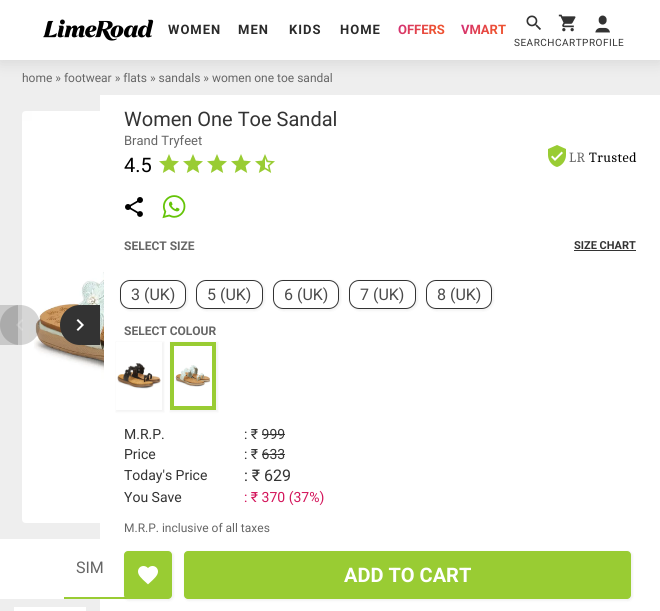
#include <cairo/cairo.h>
#include <math.h>
#include <stddef.h>


static void draw_spaced(cairo_t *cr, double x, double y, const char *s, double letter, double word) {
  cairo_move_to(cr, x, y);
  while (*s) {
    char ch[5] = {0};
    int n = 0;
    do ch[n++] = *s++; while ((*s & 0xC0) == 0x80);
    cairo_show_text(cr, ch);
    cairo_rel_move_to(cr, letter + word * (*ch == ' '), 0);
  }
}

static void rounded_rect(cairo_t *cr, double x, double y, double w, double h, double r) {
  cairo_new_sub_path(cr);
  cairo_arc(cr, x + w - r, y + h - r, r, 0, M_PI / 2);
  cairo_arc(cr, x + r, y + h - r, r, M_PI / 2, M_PI);
  cairo_arc(cr, x + r, y + r, r, M_PI, 1.5 * M_PI);
  cairo_arc(cr, x + w - r, y + r, r, 1.5 * M_PI, 2 * M_PI);
  cairo_close_path(cr);
}

static void draw_shadow(cairo_t *cr, double x, double y, double w, double h, double r, double blur, double alpha) {
  cairo_push_group_with_content(cr, CAIRO_CONTENT_ALPHA);
  cairo_set_operator(cr, CAIRO_OPERATOR_SOURCE);
  for (int i = 15; i >= -15 && fmin(w, h) + blur * i / 3 > 0; i -= 2) {
    double e = blur * i / 6;
    cairo_set_source_rgba(cr, 0, 0, 0, alpha * erfc((i - 1) / 8.5) / 2);
    rounded_rect(cr, x - e, y - e, w + 2 * e, h + 2 * e, fmax(0, fmin(r + e + blur * .6, fmin(w, h) / 2 + e)));
    cairo_fill(cr);
  }
  cairo_pattern_t *soft = cairo_pop_group(cr);
  cairo_mask(cr, soft);
  cairo_pattern_destroy(soft);
}

static void draw_image(cairo_t *cr, const char *path, double x, double y, double w, double h) {
  cairo_surface_t *image = cairo_image_surface_create_from_png(path);
  cairo_save(cr);
  cairo_set_source_surface(cr, image, x, y);
  cairo_rectangle(cr, x, y, w, h);
  cairo_fill(cr);
  cairo_restore(cr);
  cairo_surface_destroy(image);
}

static void draw(cairo_t *cr) {
  cairo_pattern_t *gradient;
  cairo_set_source_rgb(cr, 238 / 255.0, 238 / 255.0, 238 / 255.0);
  cairo_paint(cr);
  cairo_set_source_rgb(cr, 85 / 255.0, 85 / 255.0, 85 / 255.0);
  draw_shadow(cr, 0, 2, 660, 60, 0, 8, 0.16);
  cairo_set_source_rgb(cr, 1, 1, 1);
  cairo_rectangle(cr, 0, 0, 660, 60);
  cairo_fill(cr);
  draw_image(cr, "images/1.png", 43, 19, 111, 22);
  draw_image(cr, "images/2.png", 558, 14, 18, 18);
  draw_image(cr, "images/3.png", 595, 15, 15, 18);
  draw_image(cr, "images/4.png", 526, 15, 15, 15);
  cairo_set_source_rgb(cr, 201 / 255.0, 201 / 255.0, 201 / 255.0);
  cairo_rectangle(cr, 0, 305, 18, 40);
  cairo_fill(cr);
  cairo_set_source_rgb(cr, 1, 1, 1);
  cairo_rectangle(cr, 100, 95, 560, 516);
  cairo_fill(cr);
  draw_image(cr, "images/6.png", 22, 111, 82, 412);
  draw_image(cr, "images/7.png", 34, 272, 70, 98);
  cairo_set_source_rgba(cr, 51 / 255.0, 51 / 255.0, 51 / 255.0, 0.2);
  cairo_arc(cr, 20, 325, 20, 0, 2 * M_PI);
  cairo_fill(cr);
  draw_image(cr, "images/5.png", 16, 319, 7, 12);
  cairo_set_source_rgb(cr, 51 / 255.0, 51 / 255.0, 51 / 255.0);
  cairo_rectangle(cr, 82, 305, 18, 40);
  cairo_fill(cr);
  cairo_arc(cr, 80, 325, 20, 0, 2 * M_PI);
  cairo_fill(cr);
  draw_image(cr, "images/8.png", 76, 319, 8, 12);
  cairo_set_source_rgb(cr, 1, 1, 1);
  cairo_rectangle(cr, 0, 539, 100, 60);
  cairo_fill(cr);
  cairo_set_source_rgb(cr, 153 / 255.0, 204 / 255.0, 51 / 255.0);
  cairo_new_path(cr);
  cairo_move_to(cr, 150, 599);
  cairo_line_to(cr, 64, 599);
  cairo_line_to(cr, 64, 597);
  cairo_line_to(cr, 149, 597);
  cairo_close_path(cr);
  cairo_fill(cr);
  cairo_set_source_rgb(cr, 1, 1, 1);
  cairo_rectangle(cr, 14, 607, 72, 4);
  cairo_fill(cr);
  draw_image(cr, "images/9.png", 159, 154, 20, 19);
  draw_image(cr, "images/9.png", 183, 154, 20, 19);
  draw_image(cr, "images/9.png", 207, 154, 20, 19);
  draw_image(cr, "images/9.png", 231, 154, 20, 19);
  draw_image(cr, "images/10.png", 255, 154, 20, 19);
  draw_image(cr, "images/11.png", 548, 145, 18, 22);
  draw_image(cr, "images/12.png", 125, 197, 18, 20);
  draw_image(cr, "images/13.png", 162, 195, 24, 24);
  cairo_set_source_rgb(cr, 51 / 255.0, 51 / 255.0, 51 / 255.0);
  cairo_rectangle(cr, 574, 250, 62, 1);
  cairo_fill(cr);
  cairo_save(cr);
  cairo_set_fill_rule(cr, CAIRO_FILL_RULE_EVEN_ODD);
  cairo_new_path(cr);
  cairo_move_to(cr, 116, 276);
  cairo_line_to(cr, 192, 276);
  cairo_line_to(cr, 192, 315);
  cairo_line_to(cr, 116, 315);
  cairo_close_path(cr);
  cairo_move_to(cr, 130, 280);
  cairo_line_to(cr, 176, 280);
  cairo_curve_to(cr, 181.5, 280, 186, 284.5, 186, 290);
  cairo_line_to(cr, 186, 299);
  cairo_curve_to(cr, 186, 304.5, 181.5, 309, 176, 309);
  cairo_line_to(cr, 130, 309);
  cairo_curve_to(cr, 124.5, 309, 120, 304.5, 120, 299);
  cairo_line_to(cr, 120, 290);
  cairo_curve_to(cr, 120, 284.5, 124.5, 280, 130, 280);
  cairo_close_path(cr);
  cairo_clip(cr);
  cairo_set_source_rgb(cr, 0, 0, 0);
  draw_shadow(cr, 120, 280, 68, 31, 11, 1, 0.05);
  cairo_restore(cr);
  rounded_rect(cr, 120.5, 280.5, 65, 28, 9.5);
  cairo_set_line_width(cr, 1);
  cairo_stroke(cr);
  cairo_save(cr);
  cairo_set_fill_rule(cr, CAIRO_FILL_RULE_EVEN_ODD);
  cairo_new_path(cr);
  cairo_move_to(cr, 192, 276);
  cairo_line_to(cr, 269, 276);
  cairo_line_to(cr, 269, 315);
  cairo_line_to(cr, 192, 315);
  cairo_close_path(cr);
  cairo_move_to(cr, 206, 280);
  cairo_line_to(cr, 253, 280);
  cairo_curve_to(cr, 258.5, 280, 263, 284.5, 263, 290);
  cairo_line_to(cr, 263, 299);
  cairo_curve_to(cr, 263, 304.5, 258.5, 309, 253, 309);
  cairo_line_to(cr, 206, 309);
  cairo_curve_to(cr, 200.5, 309, 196, 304.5, 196, 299);
  cairo_line_to(cr, 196, 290);
  cairo_curve_to(cr, 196, 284.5, 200.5, 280, 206, 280);
  cairo_close_path(cr);
  cairo_clip(cr);
  cairo_set_source_rgb(cr, 0, 0, 0);
  draw_shadow(cr, 196, 280, 69, 31, 11, 1, 0.05);
  cairo_restore(cr);
  rounded_rect(cr, 196.5, 280.5, 66, 28, 9.5);
  cairo_stroke(cr);
  cairo_save(cr);
  cairo_set_fill_rule(cr, CAIRO_FILL_RULE_EVEN_ODD);
  cairo_new_path(cr);
  cairo_move_to(cr, 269, 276);
  cairo_line_to(cr, 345, 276);
  cairo_line_to(cr, 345, 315);
  cairo_line_to(cr, 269, 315);
  cairo_close_path(cr);
  cairo_move_to(cr, 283, 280);
  cairo_line_to(cr, 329, 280);
  cairo_curve_to(cr, 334.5, 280, 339, 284.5, 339, 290);
  cairo_line_to(cr, 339, 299);
  cairo_curve_to(cr, 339, 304.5, 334.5, 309, 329, 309);
  cairo_line_to(cr, 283, 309);
  cairo_curve_to(cr, 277.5, 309, 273, 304.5, 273, 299);
  cairo_line_to(cr, 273, 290);
  cairo_curve_to(cr, 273, 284.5, 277.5, 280, 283, 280);
  cairo_close_path(cr);
  cairo_clip(cr);
  cairo_set_source_rgb(cr, 0, 0, 0);
  draw_shadow(cr, 273, 280, 68, 31, 11, 1, 0.05);
  cairo_restore(cr);
  rounded_rect(cr, 273.5, 280.5, 65, 28, 9.5);
  cairo_stroke(cr);
  cairo_save(cr);
  cairo_set_fill_rule(cr, CAIRO_FILL_RULE_EVEN_ODD);
  cairo_new_path(cr);
  cairo_move_to(cr, 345, 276);
  cairo_line_to(cr, 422, 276);
  cairo_line_to(cr, 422, 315);
  cairo_line_to(cr, 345, 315);
  cairo_close_path(cr);
  cairo_move_to(cr, 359, 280);
  cairo_line_to(cr, 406, 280);
  cairo_curve_to(cr, 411.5, 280, 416, 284.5, 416, 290);
  cairo_line_to(cr, 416, 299);
  cairo_curve_to(cr, 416, 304.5, 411.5, 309, 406, 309);
  cairo_line_to(cr, 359, 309);
  cairo_curve_to(cr, 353.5, 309, 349, 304.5, 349, 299);
  cairo_line_to(cr, 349, 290);
  cairo_curve_to(cr, 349, 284.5, 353.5, 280, 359, 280);
  cairo_close_path(cr);
  cairo_clip(cr);
  cairo_set_source_rgb(cr, 0, 0, 0);
  draw_shadow(cr, 349, 280, 69, 31, 11, 1, 0.05);
  cairo_restore(cr);
  rounded_rect(cr, 349.5, 280.5, 66, 28, 9.5);
  cairo_stroke(cr);
  cairo_save(cr);
  cairo_set_fill_rule(cr, CAIRO_FILL_RULE_EVEN_ODD);
  cairo_new_path(cr);
  cairo_move_to(cr, 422, 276);
  cairo_line_to(cr, 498, 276);
  cairo_line_to(cr, 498, 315);
  cairo_line_to(cr, 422, 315);
  cairo_close_path(cr);
  cairo_move_to(cr, 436, 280);
  cairo_line_to(cr, 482, 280);
  cairo_curve_to(cr, 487.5, 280, 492, 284.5, 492, 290);
  cairo_line_to(cr, 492, 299);
  cairo_curve_to(cr, 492, 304.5, 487.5, 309, 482, 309);
  cairo_line_to(cr, 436, 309);
  cairo_curve_to(cr, 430.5, 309, 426, 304.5, 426, 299);
  cairo_line_to(cr, 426, 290);
  cairo_curve_to(cr, 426, 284.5, 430.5, 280, 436, 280);
  cairo_close_path(cr);
  cairo_clip(cr);
  cairo_set_source_rgb(cr, 0, 0, 0);
  draw_shadow(cr, 426, 280, 68, 31, 11, 1, 0.05);
  cairo_restore(cr);
  rounded_rect(cr, 426.5, 280.5, 65, 28, 9.5);
  cairo_stroke(cr);
  cairo_save(cr);
  cairo_set_fill_rule(cr, CAIRO_FILL_RULE_EVEN_ODD);
  cairo_new_path(cr);
  cairo_move_to(cr, 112, 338);
  cairo_line_to(cr, 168, 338);
  cairo_line_to(cr, 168, 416);
  cairo_line_to(cr, 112, 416);
  cairo_close_path(cr);
  cairo_move_to(cr, 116, 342);
  cairo_line_to(cr, 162, 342);
  cairo_line_to(cr, 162, 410);
  cairo_line_to(cr, 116, 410);
  cairo_close_path(cr);
  cairo_clip(cr);
  cairo_set_source_rgb(cr, 0, 0, 0);
  draw_shadow(cr, 116, 342, 48, 70, 0, 1, 0.05);
  cairo_restore(cr);
  draw_image(cr, "images/14.png", 117, 363, 44, 26);
  cairo_save(cr);
  cairo_set_fill_rule(cr, CAIRO_FILL_RULE_EVEN_ODD);
  cairo_new_path(cr);
  cairo_move_to(cr, 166, 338);
  cairo_line_to(cr, 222, 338);
  cairo_line_to(cr, 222, 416);
  cairo_line_to(cr, 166, 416);
  cairo_close_path(cr);
  cairo_move_to(cr, 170, 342);
  cairo_line_to(cr, 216, 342);
  cairo_line_to(cr, 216, 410);
  cairo_line_to(cr, 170, 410);
  cairo_close_path(cr);
  cairo_clip(cr);
  cairo_set_source_rgb(cr, 0, 0, 0);
  draw_shadow(cr, 170, 342, 48, 70, 0, 1, 0.05);
  cairo_restore(cr);
  cairo_rectangle(cr, 172, 344, 42, 64);
  cairo_set_source_rgb(cr, 153 / 255.0, 204 / 255.0, 51 / 255.0);
  cairo_set_line_width(cr, 4);
  cairo_stroke(cr);
  draw_image(cr, "images/15.png", 175, 365, 36, 22);
  cairo_set_source_rgb(cr, 51 / 255.0, 51 / 255.0, 51 / 255.0);
  cairo_rectangle(cr, 262, 434, 23, 1);
  cairo_fill(cr);
  cairo_rectangle(cr, 262, 454, 23, 1);
  cairo_fill(cr);
  cairo_set_source_rgb(cr, 0, 0, 0);
  draw_shadow(cr, 124, 551, 50, 50, 5, 1, 0.05);
  cairo_set_source_rgb(cr, 153 / 255.0, 204 / 255.0, 51 / 255.0);
  rounded_rect(cr, 124, 551, 48, 48, 4);
  cairo_fill(cr);
  draw_image(cr, "images/16.png", 138, 566, 20, 19);
  cairo_set_source_rgb(cr, 0, 0, 0);
  draw_shadow(cr, 184, 551, 449, 50, 5, 1, 0.05);
  cairo_set_source_rgb(cr, 153 / 255.0, 204 / 255.0, 51 / 255.0);
  rounded_rect(cr, 184, 551, 447, 48, 4);
  cairo_fill(cr);
  cairo_select_font_face(cr, "Roboto", CAIRO_FONT_SLANT_NORMAL, CAIRO_FONT_WEIGHT_BOLD);
  cairo_set_font_size(cr, 13);
  cairo_set_source_rgb(cr, 42 / 255.0, 42 / 255.0, 42 / 255.0);
  draw_spaced(cr, 168, 34, "WOMEN", 1, 0);
  draw_spaced(cr, 238, 34, "MEN", 1, 0);
  draw_spaced(cr, 289, 34, "KIDS", 1, 0);
  draw_spaced(cr, 340, 34, "HOME", 1, 0);
  gradient = cairo_pattern_create_linear(399, 15, 441, 42);
  cairo_pattern_add_color_stop_rgba(gradient, 0, 206 / 255.0, 41 / 255.0, 126 / 255.0, 1);
  cairo_pattern_add_color_stop_rgba(gradient, 0.73, 237 / 255.0, 81 / 255.0, 51 / 255.0, 1);
  cairo_set_source(cr, gradient);
  cairo_pattern_destroy(gradient);
  cairo_move_to(cr, 398, 34);
  cairo_show_text(cr, "OFFERS");
  gradient = cairo_pattern_create_linear(462, 16, 502, 42);
  cairo_pattern_add_color_stop_rgba(gradient, 0, 206 / 255.0, 41 / 255.0, 126 / 255.0, 1);
  cairo_pattern_add_color_stop_rgba(gradient, 0.73, 237 / 255.0, 81 / 255.0, 51 / 255.0, 1);
  cairo_set_source(cr, gradient);
  cairo_pattern_destroy(gradient);
  cairo_move_to(cr, 461, 34);
  cairo_show_text(cr, "VMART");
  cairo_select_font_face(cr, "Roboto", CAIRO_FONT_SLANT_NORMAL, CAIRO_FONT_WEIGHT_NORMAL);
  cairo_set_font_size(cr, 10);
  cairo_set_source_rgb(cr, 51 / 255.0, 51 / 255.0, 51 / 255.0);
  draw_spaced(cr, 514, 46, "SEARCHCARTPROFILE", 0.5, 0);
  cairo_set_font_size(cr, 12);
  cairo_set_source_rgb(cr, 102 / 255.0, 102 / 255.0, 102 / 255.0);
  cairo_move_to(cr, 22, 82);
  cairo_show_text(cr, "home » footwear » flats » sandals » women one toe sandal");
  cairo_set_font_size(cr, 16);
  cairo_move_to(cr, 76, 573);
  cairo_show_text(cr, "SIM");
  cairo_set_font_size(cr, 20);
  cairo_set_source_rgb(cr, 51 / 255.0, 51 / 255.0, 51 / 255.0);
  cairo_move_to(cr, 124, 126);
  cairo_show_text(cr, "Women One Toe Sandal");
  cairo_set_font_size(cr, 13);
  cairo_set_source_rgb(cr, 102 / 255.0, 102 / 255.0, 102 / 255.0);
  cairo_move_to(cr, 124, 145);
  cairo_show_text(cr, "Brand Tryfeet");
  cairo_set_font_size(cr, 20);
  cairo_set_source_rgb(cr, 0, 0, 0);
  cairo_move_to(cr, 124, 172);
  cairo_show_text(cr, "4.5");
  cairo_select_font_face(cr, "Caladea", CAIRO_FONT_SLANT_NORMAL, CAIRO_FONT_WEIGHT_NORMAL);
  cairo_set_font_size(cr, 14);
  cairo_set_source_rgb(cr, 102 / 255.0, 102 / 255.0, 102 / 255.0);
  draw_spaced(cr, 569, 162, "LR", 0.5, 0);
  cairo_set_source_rgb(cr, 0, 0, 0);
  draw_spaced(cr, 589, 162, "Trusted", 0.5, 0);
  cairo_select_font_face(cr, "Roboto", CAIRO_FONT_SLANT_NORMAL, CAIRO_FONT_WEIGHT_BOLD);
  cairo_set_font_size(cr, 12);
  cairo_set_source_rgb(cr, 102 / 255.0, 102 / 255.0, 102 / 255.0);
  cairo_move_to(cr, 124, 250);
  cairo_show_text(cr, "SELECT SIZE");
  cairo_set_font_size(cr, 11);
  cairo_set_source_rgb(cr, 51 / 255.0, 51 / 255.0, 51 / 255.0);
  cairo_move_to(cr, 574, 249);
  cairo_show_text(cr, "SIZE CHART");
  cairo_select_font_face(cr, "Roboto", CAIRO_FONT_SLANT_NORMAL, CAIRO_FONT_WEIGHT_NORMAL);
  cairo_set_font_size(cr, 16);
  cairo_set_source_rgb(cr, 75 / 255.0, 75 / 255.0, 75 / 255.0);
  cairo_move_to(cr, 131, 300);
  cairo_show_text(cr, "3 (UK)");
  cairo_move_to(cr, 207, 300);
  cairo_show_text(cr, "5 (UK)");
  cairo_move_to(cr, 284, 300);
  cairo_show_text(cr, "6 (UK)");
  cairo_move_to(cr, 360, 300);
  cairo_show_text(cr, "7 (UK)");
  cairo_move_to(cr, 437, 300);
  cairo_show_text(cr, "8 (UK)");
  cairo_select_font_face(cr, "Roboto", CAIRO_FONT_SLANT_NORMAL, CAIRO_FONT_WEIGHT_BOLD);
  cairo_set_font_size(cr, 12);
  cairo_set_source_rgb(cr, 102 / 255.0, 102 / 255.0, 102 / 255.0);
  cairo_move_to(cr, 124, 335);
  cairo_show_text(cr, "SELECT COLOUR");
  cairo_select_font_face(cr, "Roboto", CAIRO_FONT_SLANT_NORMAL, CAIRO_FONT_WEIGHT_NORMAL);
  cairo_set_font_size(cr, 14);
  cairo_set_source_rgb(cr, 51 / 255.0, 51 / 255.0, 51 / 255.0);
  cairo_move_to(cr, 124, 439);
  cairo_show_text(cr, "M.R.P.");
  cairo_move_to(cr, 244, 439);
  cairo_show_text(cr, ": ₹ 999");
  cairo_move_to(cr, 124, 459);
  cairo_show_text(cr, "Price");
  cairo_move_to(cr, 244, 459);
  cairo_show_text(cr, ": ₹ 633");
  cairo_move_to(cr, 124, 480);
  cairo_show_text(cr, "Today's Price");
  cairo_set_font_size(cr, 16);
  cairo_move_to(cr, 244, 481);
  cairo_show_text(cr, ": ₹ 629");
  cairo_set_font_size(cr, 14);
  cairo_move_to(cr, 124, 502);
  cairo_show_text(cr, "You Save");
  cairo_set_source_rgb(cr, 211 / 255.0, 20 / 255.0, 90 / 255.0);
  cairo_move_to(cr, 244, 502);
  cairo_show_text(cr, ": ₹ 370 (37%)");
  cairo_set_font_size(cr, 12);
  cairo_set_source_rgb(cr, 102 / 255.0, 102 / 255.0, 102 / 255.0);
  cairo_move_to(cr, 124, 532);
  cairo_show_text(cr, "M.R.P. inclusive of all taxes");
  cairo_select_font_face(cr, "Roboto", CAIRO_FONT_SLANT_NORMAL, CAIRO_FONT_WEIGHT_BOLD);
  cairo_set_font_size(cr, 20);
  cairo_set_source_rgb(cr, 1, 1, 1);
  cairo_move_to(cr, 344, 582);
  cairo_show_text(cr, "ADD TO CART");
}

int main(void) {
  cairo_surface_t *surface = cairo_image_surface_create(CAIRO_FORMAT_RGB24, 660, 611);
  cairo_t *cr = cairo_create(surface);
  cairo_font_options_t *options = cairo_font_options_create();
  cairo_font_options_set_hint_metrics(options, CAIRO_HINT_METRICS_OFF);
  cairo_font_options_set_hint_style(options, CAIRO_HINT_STYLE_NONE);
  cairo_set_font_options(cr, options);
  cairo_set_miter_limit(cr, 4);
  draw(cr);
  cairo_surface_write_to_png(surface, "out.png");
  cairo_font_options_destroy(options);
  cairo_destroy(cr);
  cairo_surface_destroy(surface);
  return 0;
}
